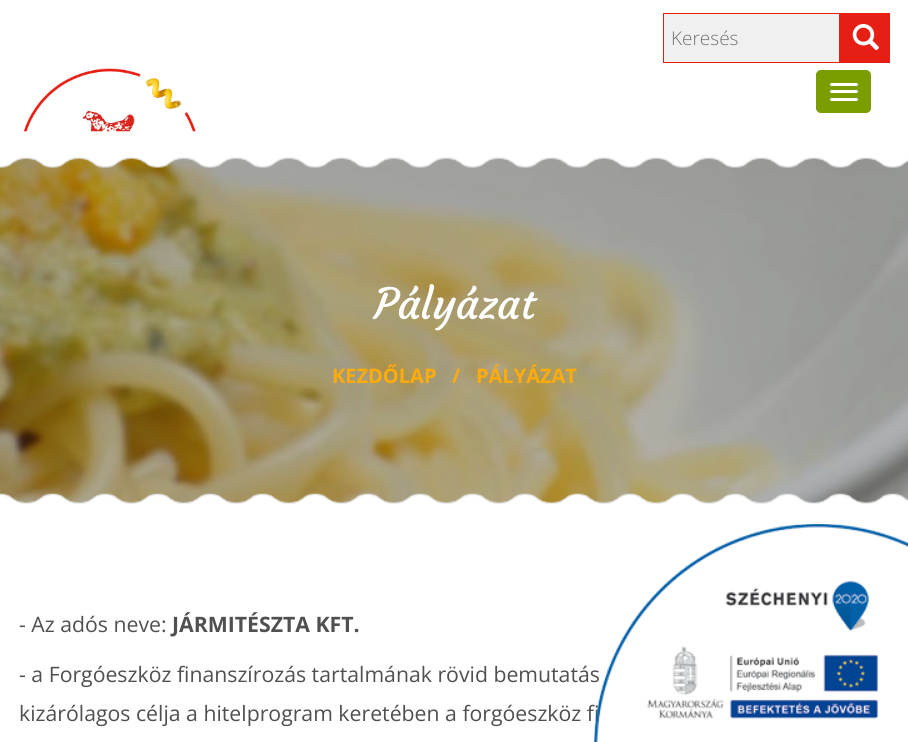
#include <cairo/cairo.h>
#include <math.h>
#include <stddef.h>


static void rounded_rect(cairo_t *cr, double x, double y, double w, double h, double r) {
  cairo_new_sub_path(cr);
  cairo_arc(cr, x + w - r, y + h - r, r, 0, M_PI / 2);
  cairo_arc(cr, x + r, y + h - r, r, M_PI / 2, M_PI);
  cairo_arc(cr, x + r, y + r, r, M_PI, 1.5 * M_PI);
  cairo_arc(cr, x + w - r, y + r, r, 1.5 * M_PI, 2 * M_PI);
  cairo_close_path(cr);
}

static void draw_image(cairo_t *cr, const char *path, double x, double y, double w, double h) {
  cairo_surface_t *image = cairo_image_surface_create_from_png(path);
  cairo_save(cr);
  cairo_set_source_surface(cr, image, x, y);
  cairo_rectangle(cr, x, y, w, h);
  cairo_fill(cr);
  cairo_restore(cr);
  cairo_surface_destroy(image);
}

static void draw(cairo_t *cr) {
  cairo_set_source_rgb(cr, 1, 1, 1);
  cairo_paint(cr);
  cairo_set_source_rgb(cr, 240 / 255.0, 240 / 255.0, 240 / 255.0);
  cairo_rectangle(cr, 663.5, 13.5, 176, 49);
  cairo_fill_preserve(cr);
  cairo_set_source_rgb(cr, 231 / 255.0, 30 / 255.0, 20 / 255.0);
  cairo_set_line_width(cr, 1);
  cairo_stroke(cr);
  cairo_rectangle(cr, 840, 13, 50, 50);
  cairo_fill(cr);
  draw_image(cr, "images/1.png", 852, 23, 27, 28);
  draw_image(cr, "images/2.png", 23, 68, 173, 64);
  cairo_set_source_rgb(cr, 122 / 255.0, 157 / 255.0, 0);
  rounded_rect(cr, 816.5, 70.5, 54, 42, 4.5);
  cairo_fill_preserve(cr);
  cairo_stroke(cr);
  cairo_set_source_rgb(cr, 1, 1, 1);
  rounded_rect(cr, 830, 83, 28, 3, 1.5);
  cairo_fill(cr);
  rounded_rect(cr, 830, 90, 28, 3, 1.5);
  cairo_fill(cr);
  rounded_rect(cr, 830, 98, 28, 3, 1.5);
  cairo_fill(cr);
  draw_image(cr, "images/4.png", 0, 158, 908, 345);
  draw_image(cr, "images/3.png", 0, 156, 908, 12);
  draw_image(cr, "images/5.png", 0, 493, 908, 12);
  cairo_select_font_face(cr, "Open Sans Light", CAIRO_FONT_SLANT_NORMAL, CAIRO_FONT_WEIGHT_NORMAL);
  cairo_set_font_size(cr, 19);
  cairo_set_source_rgb(cr, 117 / 255.0, 117 / 255.0, 117 / 255.0);
  cairo_move_to(cr, 671, 45);
  cairo_show_text(cr, "Keresés");
  cairo_select_font_face(cr, "Courgette", CAIRO_FONT_SLANT_NORMAL, CAIRO_FONT_WEIGHT_NORMAL);
  cairo_set_font_size(cr, 42.5);
  cairo_set_source_rgb(cr, 1, 1, 1);
  cairo_move_to(cr, 374, 319);
  cairo_show_text(cr, "Pályázat");
  cairo_select_font_face(cr, "Open Sans", CAIRO_FONT_SLANT_NORMAL, CAIRO_FONT_WEIGHT_BOLD);
  cairo_set_font_size(cr, 20);
  cairo_set_source_rgb(cr, 1, 171 / 255.0, 10 / 255.0);
  cairo_move_to(cr, 332, 383);
  cairo_show_text(cr, "KEZDŐLAP");
  cairo_move_to(cr, 452, 383);
  cairo_show_text(cr, "/");
  cairo_move_to(cr, 476, 383);
  cairo_show_text(cr, "PÁLYÁZAT");
  cairo_select_font_face(cr, "Open Sans", CAIRO_FONT_SLANT_NORMAL, CAIRO_FONT_WEIGHT_NORMAL);
  cairo_set_font_size(cr, 21.25);
  cairo_set_source_rgb(cr, 80 / 255.0, 80 / 255.0, 80 / 255.0);
  cairo_move_to(cr, 19, 632);
  cairo_show_text(cr, "- Az adós neve:");
  cairo_select_font_face(cr, "Open Sans", CAIRO_FONT_SLANT_NORMAL, CAIRO_FONT_WEIGHT_BOLD);
  cairo_move_to(cr, 172, 632);
  cairo_show_text(cr, "JÁRMITÉSZTA KFT.");
  cairo_select_font_face(cr, "Open Sans", CAIRO_FONT_SLANT_NORMAL, CAIRO_FONT_WEIGHT_NORMAL);
  cairo_move_to(cr, 19, 682);
  cairo_show_text(cr, "- a Forgóeszköz finanszírozás tartalmának rövid bemutatás");
  cairo_move_to(cr, 19, 721);
  cairo_show_text(cr, "kizárólagos célja a hitelprogram keretében a forgóeszköz fi");
  draw_image(cr, "images/6.png", 594, 524, 314, 218);
}

int main(void) {
  cairo_surface_t *surface = cairo_image_surface_create(CAIRO_FORMAT_RGB24, 908, 742);
  cairo_t *cr = cairo_create(surface);
  cairo_font_options_t *options = cairo_font_options_create();
  cairo_font_options_set_hint_metrics(options, CAIRO_HINT_METRICS_OFF);
  cairo_font_options_set_hint_style(options, CAIRO_HINT_STYLE_NONE);
  cairo_set_font_options(cr, options);
  cairo_set_miter_limit(cr, 4);
  draw(cr);
  cairo_surface_write_to_png(surface, "out.png");
  cairo_font_options_destroy(options);
  cairo_destroy(cr);
  cairo_surface_destroy(surface);
  return 0;
}
